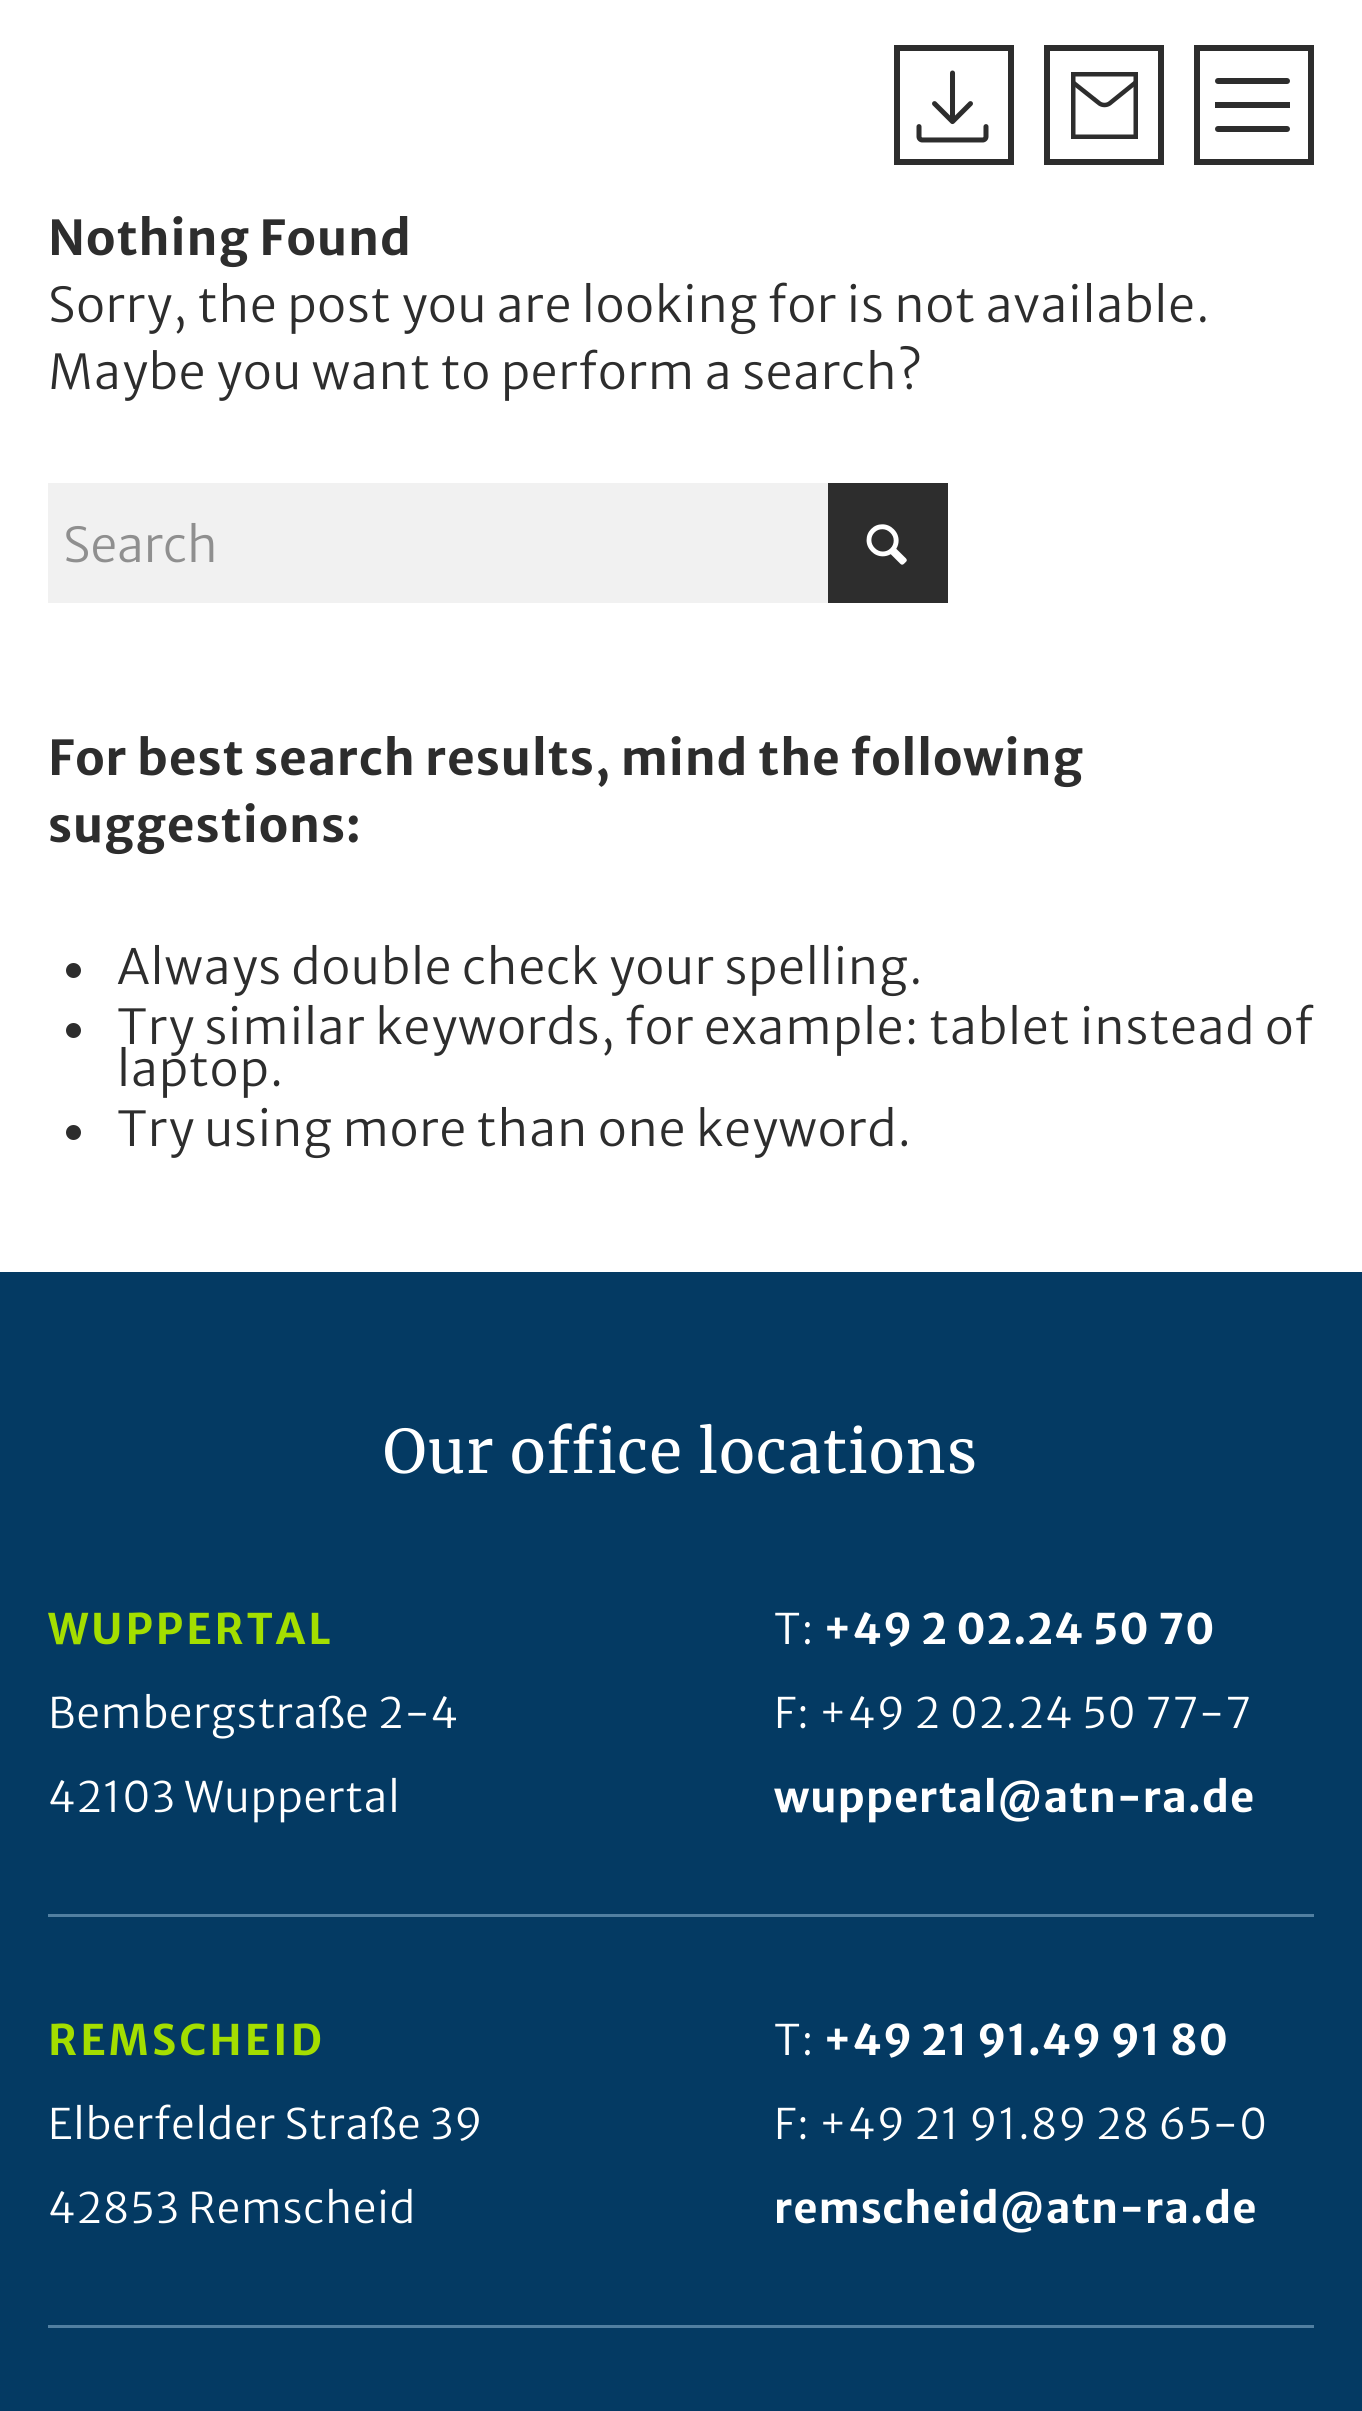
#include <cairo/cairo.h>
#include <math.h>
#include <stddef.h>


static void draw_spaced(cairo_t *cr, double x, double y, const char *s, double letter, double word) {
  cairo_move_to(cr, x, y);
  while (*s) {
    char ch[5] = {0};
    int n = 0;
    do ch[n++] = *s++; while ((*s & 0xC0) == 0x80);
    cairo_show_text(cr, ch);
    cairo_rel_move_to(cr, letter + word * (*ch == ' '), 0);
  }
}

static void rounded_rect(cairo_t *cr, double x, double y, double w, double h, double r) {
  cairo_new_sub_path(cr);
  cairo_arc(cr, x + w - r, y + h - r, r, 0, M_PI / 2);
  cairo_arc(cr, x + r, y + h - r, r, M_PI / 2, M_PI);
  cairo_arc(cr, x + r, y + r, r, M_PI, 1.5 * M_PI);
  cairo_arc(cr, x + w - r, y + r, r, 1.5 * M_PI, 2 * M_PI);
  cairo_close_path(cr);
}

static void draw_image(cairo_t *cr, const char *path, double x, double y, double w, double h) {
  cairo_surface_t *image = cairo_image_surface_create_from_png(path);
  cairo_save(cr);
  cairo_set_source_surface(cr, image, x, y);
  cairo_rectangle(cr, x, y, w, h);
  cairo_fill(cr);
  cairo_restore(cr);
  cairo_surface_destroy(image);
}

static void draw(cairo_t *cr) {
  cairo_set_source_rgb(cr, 1, 1, 1);
  cairo_paint(cr);
  draw_image(cr, "images/1.png", 894, 45, 120, 120);
  cairo_rectangle(cr, 1047, 48, 114, 114);
  cairo_set_source_rgb(cr, 45 / 255.0, 45 / 255.0, 45 / 255.0);
  cairo_set_line_width(cr, 6);
  cairo_stroke(cr);
  cairo_rectangle(cr, 1073.25, 74.25, 62.5, 62.5);
  cairo_set_line_width(cr, 4.5);
  cairo_stroke(cr);
  cairo_new_path(cr);
  cairo_move_to(cr, 1073, 82.5);
  cairo_line_to(cr, 1099.5, 103.5);
  cairo_curve_to(cr, 1102.5, 105.5, 1106.5, 105.5, 1109.5, 103.5);
  cairo_line_to(cr, 1135.5, 82.5);
  cairo_stroke(cr);
  cairo_rectangle(cr, 1197, 48, 114, 114);
  cairo_set_line_width(cr, 6);
  cairo_stroke(cr);
  cairo_rectangle(cr, 1215, 102, 75, 6);
  cairo_fill(cr);
  rounded_rect(cr, 1215, 78, 75, 6, 3);
  cairo_fill(cr);
  rounded_rect(cr, 1215, 126, 75, 6, 3);
  cairo_fill(cr);
  cairo_set_source_rgb(cr, 241 / 255.0, 241 / 255.0, 241 / 255.0);
  cairo_rectangle(cr, 48, 483, 780, 120);
  cairo_fill(cr);
  cairo_set_source_rgb(cr, 45 / 255.0, 45 / 255.0, 45 / 255.0);
  cairo_rectangle(cr, 828, 483, 120, 120);
  cairo_fill(cr);
  draw_image(cr, "images/2.png", 866, 524, 41, 41);
  cairo_arc(cr, 73.5, 970.5, 7.5, 0, 2 * M_PI);
  cairo_fill(cr);
  cairo_arc(cr, 73.5, 1030.5, 7.5, 0, 2 * M_PI);
  cairo_fill(cr);
  cairo_arc(cr, 73.5, 1132.5, 7.5, 0, 2 * M_PI);
  cairo_fill(cr);
  cairo_set_source_rgb(cr, 4 / 255.0, 58 / 255.0, 99 / 255.0);
  cairo_rectangle(cr, 0, 1272, 1362, 1139);
  cairo_fill(cr);
  cairo_set_source_rgb(cr, 81 / 255.0, 127 / 255.0, 161 / 255.0);
  cairo_rectangle(cr, 48, 1914, 1266, 3);
  cairo_fill(cr);
  cairo_rectangle(cr, 48, 2325, 1266, 3);
  cairo_fill(cr);
  cairo_select_font_face(cr, "Merriweather Sans", CAIRO_FONT_SLANT_NORMAL, CAIRO_FONT_WEIGHT_BOLD);
  cairo_set_font_size(cr, 48);
  cairo_set_source_rgb(cr, 45 / 255.0, 45 / 255.0, 45 / 255.0);
  draw_spaced(cr, 48, 255, "Nothing Found", 0.9, 0);
  cairo_select_font_face(cr, "Merriweather Sans Light", CAIRO_FONT_SLANT_NORMAL, CAIRO_FONT_WEIGHT_NORMAL);
  draw_spaced(cr, 48, 322, "Sorry, the post you are looking for is not available.", 0.9, 0);
  draw_spaced(cr, 48, 389, "Maybe you want to perform a search?", 0.9, 0);
  cairo_set_source_rgb(cr, 143 / 255.0, 143 / 255.0, 143 / 255.0);
  cairo_move_to(cr, 63, 562);
  cairo_show_text(cr, "Search");
  cairo_select_font_face(cr, "Merriweather Sans", CAIRO_FONT_SLANT_NORMAL, CAIRO_FONT_WEIGHT_BOLD);
  cairo_set_source_rgb(cr, 45 / 255.0, 45 / 255.0, 45 / 255.0);
  draw_spaced(cr, 48, 775, "For best search results, mind the following", 0.9, 0);
  draw_spaced(cr, 48, 842, "suggestions:", 0.9, 0);
  cairo_select_font_face(cr, "Merriweather Sans Light", CAIRO_FONT_SLANT_NORMAL, CAIRO_FONT_WEIGHT_NORMAL);
  draw_spaced(cr, 117, 984, "Always double check your spelling.", 0.9, 0);
  draw_spaced(cr, 117, 1044, "Try similar keywords, for example: tablet instead of", 0.9, 0);
  draw_spaced(cr, 117, 1086, "laptop.", 0.9, 0);
  draw_spaced(cr, 117, 1146, "Try using more than one keyword.", 0.9, 0);
  cairo_select_font_face(cr, "Merriweather", CAIRO_FONT_SLANT_NORMAL, CAIRO_FONT_WEIGHT_NORMAL);
  cairo_set_font_size(cr, 60);
  cairo_set_source_rgb(cr, 1, 1, 1);
  draw_spaced(cr, 383, 1473, "Our office locations", 0.9, 0);
  cairo_select_font_face(cr, "Merriweather Sans", CAIRO_FONT_SLANT_NORMAL, CAIRO_FONT_WEIGHT_BOLD);
  cairo_set_font_size(cr, 42);
  cairo_set_source_rgb(cr, 164 / 255.0, 222 / 255.0, 0);
  draw_spaced(cr, 48, 1644, "WUPPERTAL", 3, 0);
  cairo_select_font_face(cr, "Merriweather Sans Light", CAIRO_FONT_SLANT_NORMAL, CAIRO_FONT_WEIGHT_NORMAL);
  cairo_set_source_rgb(cr, 1, 1, 1);
  draw_spaced(cr, 48, 1728, "Bembergstraße 2-4", 0.9, 0);
  draw_spaced(cr, 48, 1812, "42103 Wuppertal", 0.9, 0);
  draw_spaced(cr, 774, 1644, "T:", 0.9, 0);
  cairo_select_font_face(cr, "Merriweather Sans", CAIRO_FONT_SLANT_NORMAL, CAIRO_FONT_WEIGHT_BOLD);
  draw_spaced(cr, 823, 1644, "+49 2 02.24 50 70", 0.9, 0);
  cairo_select_font_face(cr, "Merriweather Sans Light", CAIRO_FONT_SLANT_NORMAL, CAIRO_FONT_WEIGHT_NORMAL);
  draw_spaced(cr, 774, 1728, "F: +49 2 02.24 50 77-7", 0.9, 0);
  cairo_select_font_face(cr, "Merriweather Sans", CAIRO_FONT_SLANT_NORMAL, CAIRO_FONT_WEIGHT_BOLD);
  draw_spaced(cr, 774, 1812, "wuppertal@atn-ra.de", 0.9, 0);
  cairo_set_source_rgb(cr, 164 / 255.0, 222 / 255.0, 0);
  draw_spaced(cr, 48, 2055, "REMSCHEID", 3, 0);
  cairo_select_font_face(cr, "Merriweather Sans Light", CAIRO_FONT_SLANT_NORMAL, CAIRO_FONT_WEIGHT_NORMAL);
  cairo_set_source_rgb(cr, 1, 1, 1);
  draw_spaced(cr, 48, 2139, "Elberfelder Straße 39", 0.9, 0);
  draw_spaced(cr, 48, 2223, "42853 Remscheid", 0.9, 0);
  draw_spaced(cr, 774, 2055, "T:", 0.9, 0);
  cairo_select_font_face(cr, "Merriweather Sans", CAIRO_FONT_SLANT_NORMAL, CAIRO_FONT_WEIGHT_BOLD);
  draw_spaced(cr, 823, 2055, "+49 21 91.49 91 80", 0.9, 0);
  cairo_select_font_face(cr, "Merriweather Sans Light", CAIRO_FONT_SLANT_NORMAL, CAIRO_FONT_WEIGHT_NORMAL);
  draw_spaced(cr, 774, 2139, "F: +49 21 91.89 28 65-0", 0.9, 0);
  cairo_select_font_face(cr, "Merriweather Sans", CAIRO_FONT_SLANT_NORMAL, CAIRO_FONT_WEIGHT_BOLD);
  draw_spaced(cr, 774, 2223, "remscheid@atn-ra.de", 0.9, 0);
}

int main(void) {
  cairo_surface_t *surface = cairo_image_surface_create(CAIRO_FORMAT_RGB24, 1362, 2411);
  cairo_t *cr = cairo_create(surface);
  cairo_font_options_t *options = cairo_font_options_create();
  cairo_font_options_set_hint_metrics(options, CAIRO_HINT_METRICS_OFF);
  cairo_font_options_set_hint_style(options, CAIRO_HINT_STYLE_NONE);
  cairo_set_font_options(cr, options);
  cairo_set_miter_limit(cr, 4);
  draw(cr);
  cairo_surface_write_to_png(surface, "out.png");
  cairo_font_options_destroy(options);
  cairo_destroy(cr);
  cairo_surface_destroy(surface);
  return 0;
}
